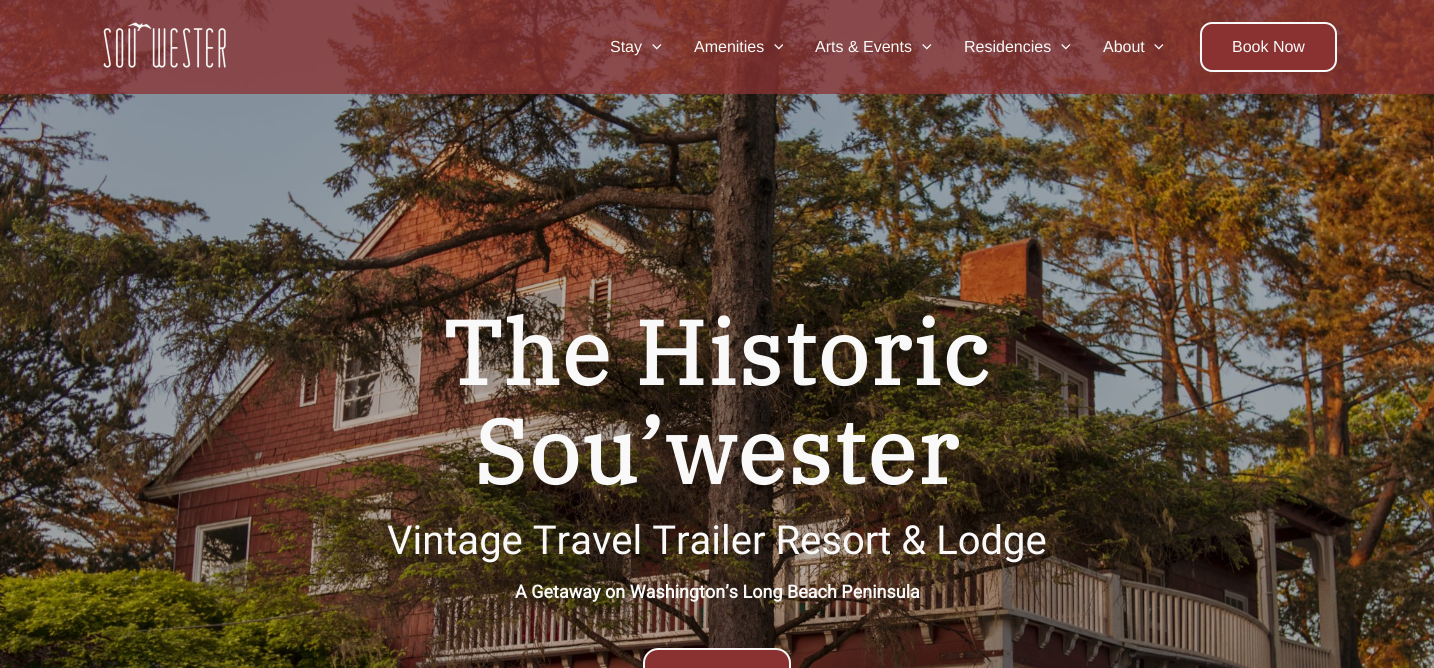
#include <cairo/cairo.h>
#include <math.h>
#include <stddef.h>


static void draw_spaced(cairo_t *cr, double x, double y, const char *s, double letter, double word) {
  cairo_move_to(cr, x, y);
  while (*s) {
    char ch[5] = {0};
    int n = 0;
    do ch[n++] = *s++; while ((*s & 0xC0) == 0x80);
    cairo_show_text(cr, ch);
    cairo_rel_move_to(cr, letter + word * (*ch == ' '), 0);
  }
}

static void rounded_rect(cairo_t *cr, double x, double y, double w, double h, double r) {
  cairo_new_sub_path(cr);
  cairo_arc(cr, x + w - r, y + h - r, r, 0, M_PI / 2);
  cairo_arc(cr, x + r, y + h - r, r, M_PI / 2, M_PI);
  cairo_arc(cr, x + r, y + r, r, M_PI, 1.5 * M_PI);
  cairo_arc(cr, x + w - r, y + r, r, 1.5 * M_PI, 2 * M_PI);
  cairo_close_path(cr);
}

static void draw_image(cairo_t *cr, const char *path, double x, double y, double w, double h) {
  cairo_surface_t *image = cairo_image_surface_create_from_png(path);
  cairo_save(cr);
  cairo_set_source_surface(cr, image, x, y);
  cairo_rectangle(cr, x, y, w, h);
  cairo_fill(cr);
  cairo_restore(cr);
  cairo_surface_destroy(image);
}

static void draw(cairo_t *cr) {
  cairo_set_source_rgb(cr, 1, 1, 1);
  cairo_paint(cr);
  draw_image(cr, "images/7.png", 0, 0, 1434, 668);
  cairo_set_source_rgba(cr, 138 / 255.0, 50 / 255.0, 50 / 255.0, 0.76);
  cairo_rectangle(cr, 0, 0, 1434, 94);
  cairo_fill(cr);
  draw_image(cr, "images/1.png", 103, 22, 123, 46);
  draw_image(cr, "images/2.png", 652, 44, 10, 6);
  draw_image(cr, "images/3.png", 774, 44, 9, 6);
  draw_image(cr, "images/4.png", 922, 44, 10, 6);
  draw_image(cr, "images/5.png", 1061, 44, 10, 6);
  draw_image(cr, "images/6.png", 1154, 44, 10, 6);
  cairo_set_source_rgb(cr, 138 / 255.0, 50 / 255.0, 50 / 255.0);
  rounded_rect(cr, 1201, 23, 135, 48, 11);
  cairo_fill_preserve(cr);
  cairo_set_source_rgb(cr, 249 / 255.0, 249 / 255.0, 249 / 255.0);
  cairo_stroke(cr);
  cairo_set_source_rgb(cr, 138 / 255.0, 50 / 255.0, 50 / 255.0);
  rounded_rect(cr, 644, 649, 146, 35, 14);
  cairo_fill_preserve(cr);
  cairo_set_source_rgb(cr, 249 / 255.0, 249 / 255.0, 249 / 255.0);
  cairo_stroke(cr);
  cairo_select_font_face(cr, "Liberation Sans", CAIRO_FONT_SLANT_NORMAL, CAIRO_FONT_WEIGHT_NORMAL);
  cairo_set_font_size(cr, 16);
  cairo_move_to(cr, 610, 52);
  cairo_show_text(cr, "Stay");
  cairo_move_to(cr, 694, 52);
  cairo_show_text(cr, "Amenities");
  cairo_move_to(cr, 815, 52);
  cairo_show_text(cr, "Arts & Events");
  cairo_move_to(cr, 964, 52);
  cairo_show_text(cr, "Residencies");
  cairo_move_to(cr, 1103, 52);
  cairo_show_text(cr, "About");
  cairo_move_to(cr, 1232, 52);
  cairo_show_text(cr, "Book Now");
  cairo_select_font_face(cr, "IBM Plex Serif", CAIRO_FONT_SLANT_NORMAL, CAIRO_FONT_WEIGHT_BOLD);
  cairo_set_font_size(cr, 90);
  draw_spaced(cr, 443, 385, "The Historic", 2, 0);
  draw_spaced(cr, 474, 484, "Sou’wester", 2, 0);
  cairo_select_font_face(cr, "Roboto", CAIRO_FONT_SLANT_NORMAL, CAIRO_FONT_WEIGHT_NORMAL);
  cairo_set_font_size(cr, 40);
  cairo_move_to(cr, 387, 554);
  cairo_show_text(cr, "Vintage Travel Trailer Resort & Lodge");
  cairo_select_font_face(cr, "Roboto", CAIRO_FONT_SLANT_NORMAL, CAIRO_FONT_WEIGHT_BOLD);
  cairo_set_font_size(cr, 18);
  cairo_move_to(cr, 515, 598);
  cairo_show_text(cr, "A Getaway on Washington’s Long Beach Peninsula");
}

int main(void) {
  cairo_surface_t *surface = cairo_image_surface_create(CAIRO_FORMAT_RGB24, 1434, 668);
  cairo_t *cr = cairo_create(surface);
  cairo_font_options_t *options = cairo_font_options_create();
  cairo_font_options_set_hint_metrics(options, CAIRO_HINT_METRICS_OFF);
  cairo_font_options_set_hint_style(options, CAIRO_HINT_STYLE_NONE);
  cairo_set_font_options(cr, options);
  cairo_set_miter_limit(cr, 4);
  draw(cr);
  cairo_surface_write_to_png(surface, "out.png");
  cairo_font_options_destroy(options);
  cairo_destroy(cr);
  cairo_surface_destroy(surface);
  return 0;
}
